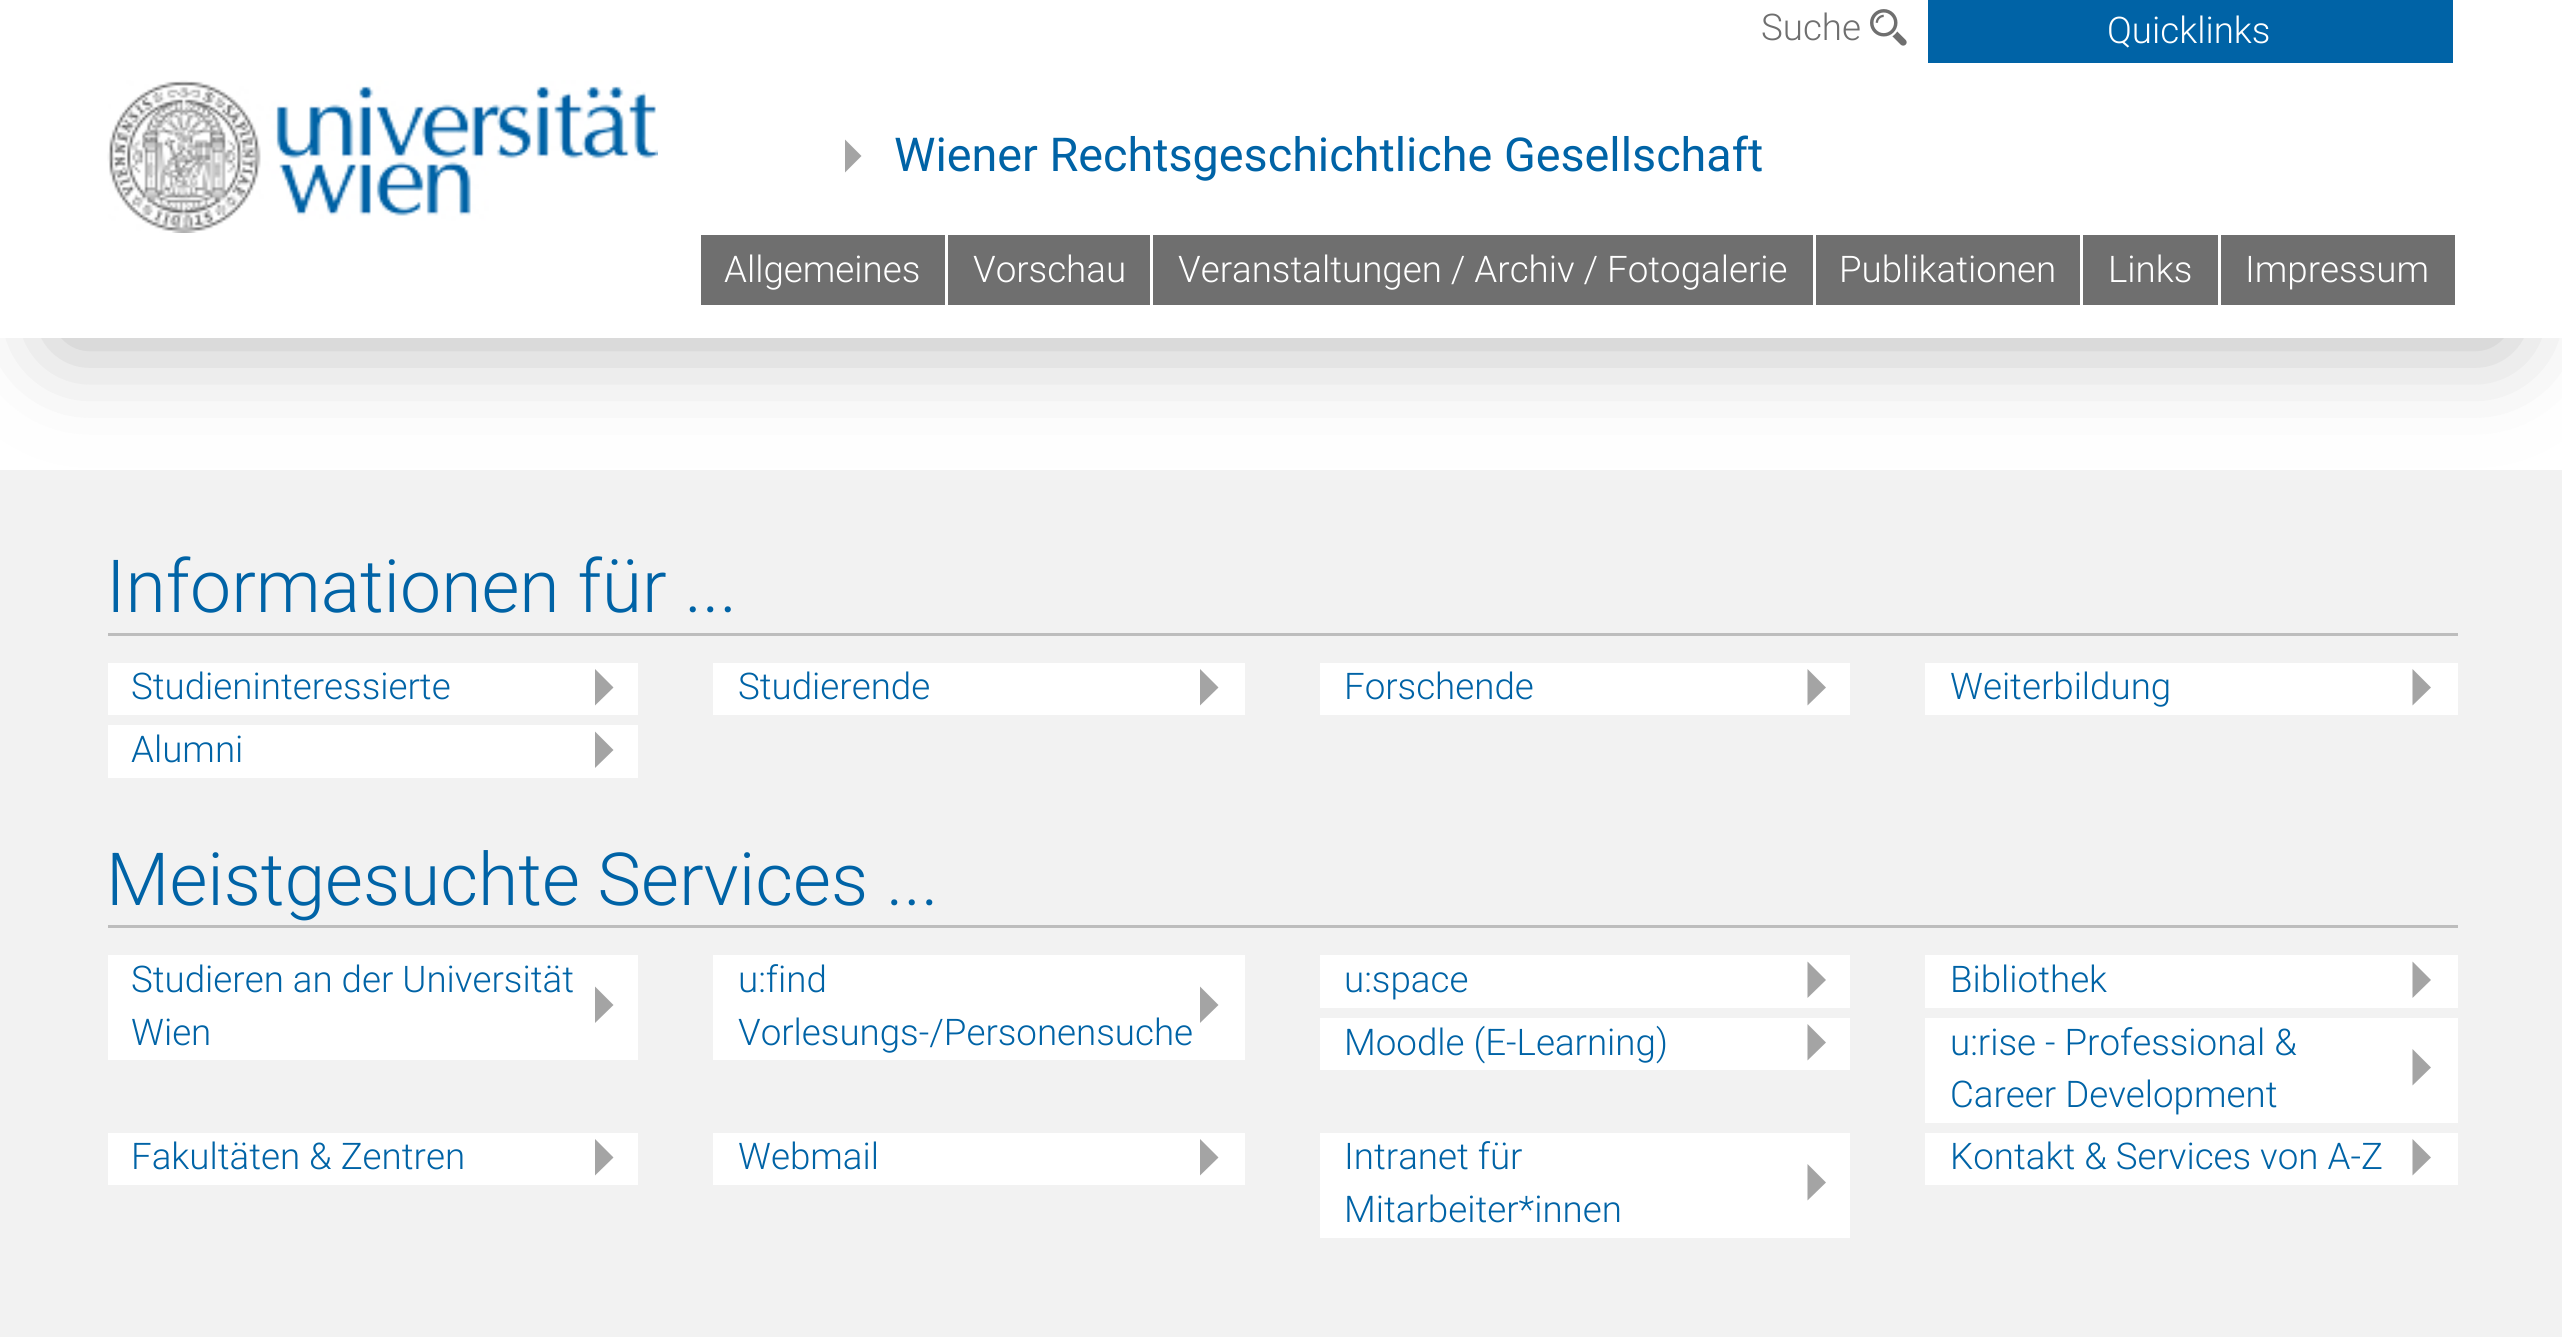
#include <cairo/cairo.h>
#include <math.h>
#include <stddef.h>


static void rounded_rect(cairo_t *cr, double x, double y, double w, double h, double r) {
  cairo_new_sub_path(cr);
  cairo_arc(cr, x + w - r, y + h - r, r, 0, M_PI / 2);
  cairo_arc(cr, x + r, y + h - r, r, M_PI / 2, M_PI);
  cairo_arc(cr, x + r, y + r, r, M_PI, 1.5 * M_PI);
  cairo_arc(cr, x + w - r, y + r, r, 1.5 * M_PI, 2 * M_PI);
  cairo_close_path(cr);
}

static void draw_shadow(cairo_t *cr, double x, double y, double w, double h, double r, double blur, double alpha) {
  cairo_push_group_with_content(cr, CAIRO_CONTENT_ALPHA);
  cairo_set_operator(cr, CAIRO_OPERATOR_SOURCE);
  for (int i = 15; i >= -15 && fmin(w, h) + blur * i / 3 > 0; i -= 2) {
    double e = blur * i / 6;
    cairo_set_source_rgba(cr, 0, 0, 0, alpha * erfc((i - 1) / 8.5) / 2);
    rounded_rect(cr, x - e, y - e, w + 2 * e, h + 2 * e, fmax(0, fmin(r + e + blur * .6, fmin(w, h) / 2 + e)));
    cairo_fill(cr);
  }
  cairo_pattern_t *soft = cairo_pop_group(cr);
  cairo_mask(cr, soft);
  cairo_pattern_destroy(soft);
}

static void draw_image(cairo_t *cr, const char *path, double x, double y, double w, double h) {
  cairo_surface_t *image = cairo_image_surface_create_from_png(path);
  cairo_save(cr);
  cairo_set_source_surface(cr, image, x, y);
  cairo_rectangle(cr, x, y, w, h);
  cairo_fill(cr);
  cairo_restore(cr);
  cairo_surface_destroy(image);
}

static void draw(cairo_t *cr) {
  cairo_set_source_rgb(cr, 1, 1, 1);
  cairo_paint(cr);
  cairo_set_source_rgb(cr, 242 / 255.0, 242 / 255.0, 242 / 255.0);
  cairo_rectangle(cr, 0, 470, 2562, 867);
  cairo_fill(cr);
  cairo_save(cr);
  cairo_set_fill_rule(cr, CAIRO_FILL_RULE_EVEN_ODD);
  cairo_new_path(cr);
  cairo_move_to(cr, 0, 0);
  cairo_line_to(cr, 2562, 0);
  cairo_line_to(cr, 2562, 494);
  cairo_line_to(cr, 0, 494);
  cairo_close_path(cr);
  cairo_move_to(cr, 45, 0);
  cairo_line_to(cr, 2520, 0);
  cairo_line_to(cr, 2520, 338);
  cairo_line_to(cr, 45, 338);
  cairo_close_path(cr);
  cairo_clip(cr);
  cairo_set_source_rgb(cr, 70 / 255.0, 70 / 255.0, 70 / 255.0);
  draw_shadow(cr, 60, 35, 2445, 308, 0, 50, 0.4);
  cairo_restore(cr);
  cairo_set_source_rgb(cr, 1, 1, 1);
  cairo_new_path(cr);
  cairo_move_to(cr, -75, 0);
  cairo_line_to(cr, -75, 338);
  cairo_line_to(cr, 2400, 338);
  cairo_line_to(cr, 45, 338);
  cairo_line_to(cr, 45, 0);
  cairo_close_path(cr);
  cairo_fill(cr);
  cairo_new_path(cr);
  cairo_move_to(cr, 165, 338);
  cairo_line_to(cr, 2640, 338);
  cairo_line_to(cr, 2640, 0);
  cairo_line_to(cr, 2520, 0);
  cairo_line_to(cr, 2520, 338);
  cairo_close_path(cr);
  cairo_fill(cr);
  draw_image(cr, "images/1.png", 1870, 9, 37, 37);
  cairo_set_source_rgb(cr, 0, 99 / 255.0, 166 / 255.0);
  cairo_rectangle(cr, 1928, 0, 525, 63);
  cairo_fill(cr);
  draw_image(cr, "images/2.png", 107, 80, 551, 153);
  cairo_set_source_rgb(cr, 164 / 255.0, 164 / 255.0, 164 / 255.0);
  cairo_new_path(cr);
  cairo_move_to(cr, 845, 139.5);
  cairo_line_to(cr, 845, 172.5);
  cairo_line_to(cr, 861.5, 156);
  cairo_close_path(cr);
  cairo_fill(cr);
  cairo_set_source_rgb(cr, 111 / 255.0, 111 / 255.0, 111 / 255.0);
  cairo_rectangle(cr, 701, 235, 244, 70);
  cairo_fill(cr);
  cairo_rectangle(cr, 948, 235, 202, 70);
  cairo_fill(cr);
  cairo_rectangle(cr, 1153, 235, 660, 70);
  cairo_fill(cr);
  cairo_rectangle(cr, 1816, 235, 264, 70);
  cairo_fill(cr);
  cairo_rectangle(cr, 2083, 235, 135, 70);
  cairo_fill(cr);
  cairo_rectangle(cr, 2221, 235, 234, 70);
  cairo_fill(cr);
  cairo_set_source_rgb(cr, 189 / 255.0, 189 / 255.0, 189 / 255.0);
  cairo_rectangle(cr, 108, 633, 2350, 3);
  cairo_fill(cr);
  cairo_set_source_rgb(cr, 1, 1, 1);
  cairo_rectangle(cr, 108, 663, 530, 52);
  cairo_fill(cr);
  cairo_set_source_rgb(cr, 164 / 255.0, 164 / 255.0, 164 / 255.0);
  cairo_new_path(cr);
  cairo_move_to(cr, 595, 669);
  cairo_line_to(cr, 595, 705.5);
  cairo_line_to(cr, 613.5, 687.5);
  cairo_close_path(cr);
  cairo_fill(cr);
  cairo_set_source_rgb(cr, 1, 1, 1);
  cairo_rectangle(cr, 713, 663, 532, 52);
  cairo_fill(cr);
  cairo_set_source_rgb(cr, 164 / 255.0, 164 / 255.0, 164 / 255.0);
  cairo_new_path(cr);
  cairo_move_to(cr, 1200, 669);
  cairo_line_to(cr, 1200, 705.5);
  cairo_line_to(cr, 1218.5, 687.5);
  cairo_close_path(cr);
  cairo_fill(cr);
  cairo_set_source_rgb(cr, 1, 1, 1);
  cairo_rectangle(cr, 1320, 663, 530, 52);
  cairo_fill(cr);
  cairo_set_source_rgb(cr, 164 / 255.0, 164 / 255.0, 164 / 255.0);
  cairo_new_path(cr);
  cairo_move_to(cr, 1807.5, 669);
  cairo_line_to(cr, 1807.5, 705.5);
  cairo_line_to(cr, 1826, 687.5);
  cairo_close_path(cr);
  cairo_fill(cr);
  cairo_set_source_rgb(cr, 1, 1, 1);
  cairo_rectangle(cr, 1925, 663, 533, 52);
  cairo_fill(cr);
  cairo_set_source_rgb(cr, 164 / 255.0, 164 / 255.0, 164 / 255.0);
  cairo_new_path(cr);
  cairo_move_to(cr, 2412.5, 669);
  cairo_line_to(cr, 2412.5, 705.5);
  cairo_line_to(cr, 2431, 687.5);
  cairo_close_path(cr);
  cairo_fill(cr);
  cairo_set_source_rgb(cr, 1, 1, 1);
  cairo_rectangle(cr, 108, 725, 530, 53);
  cairo_fill(cr);
  cairo_set_source_rgb(cr, 164 / 255.0, 164 / 255.0, 164 / 255.0);
  cairo_new_path(cr);
  cairo_move_to(cr, 595, 731.5);
  cairo_line_to(cr, 595, 768);
  cairo_line_to(cr, 613.5, 750);
  cairo_close_path(cr);
  cairo_fill(cr);
  cairo_set_source_rgb(cr, 189 / 255.0, 189 / 255.0, 189 / 255.0);
  cairo_rectangle(cr, 108, 925, 2350, 3);
  cairo_fill(cr);
  cairo_set_source_rgb(cr, 1, 1, 1);
  cairo_rectangle(cr, 108, 955, 530, 105);
  cairo_fill(cr);
  cairo_set_source_rgb(cr, 164 / 255.0, 164 / 255.0, 164 / 255.0);
  cairo_new_path(cr);
  cairo_move_to(cr, 595, 986.5);
  cairo_line_to(cr, 595, 1023);
  cairo_line_to(cr, 613.5, 1005);
  cairo_close_path(cr);
  cairo_fill(cr);
  cairo_set_source_rgb(cr, 1, 1, 1);
  cairo_rectangle(cr, 713, 955, 532, 105);
  cairo_fill(cr);
  cairo_set_source_rgb(cr, 164 / 255.0, 164 / 255.0, 164 / 255.0);
  cairo_new_path(cr);
  cairo_move_to(cr, 1200, 986.5);
  cairo_line_to(cr, 1200, 1023);
  cairo_line_to(cr, 1218.5, 1005);
  cairo_close_path(cr);
  cairo_fill(cr);
  cairo_set_source_rgb(cr, 1, 1, 1);
  cairo_rectangle(cr, 1320, 955, 530, 53);
  cairo_fill(cr);
  cairo_set_source_rgb(cr, 164 / 255.0, 164 / 255.0, 164 / 255.0);
  cairo_new_path(cr);
  cairo_move_to(cr, 1807.5, 961.5);
  cairo_line_to(cr, 1807.5, 998);
  cairo_line_to(cr, 1826, 980);
  cairo_close_path(cr);
  cairo_fill(cr);
  cairo_set_source_rgb(cr, 1, 1, 1);
  cairo_rectangle(cr, 1925, 955, 533, 53);
  cairo_fill(cr);
  cairo_set_source_rgb(cr, 164 / 255.0, 164 / 255.0, 164 / 255.0);
  cairo_new_path(cr);
  cairo_move_to(cr, 2412.5, 961.5);
  cairo_line_to(cr, 2412.5, 998);
  cairo_line_to(cr, 2431, 980);
  cairo_close_path(cr);
  cairo_fill(cr);
  cairo_set_source_rgb(cr, 1, 1, 1);
  cairo_rectangle(cr, 1320, 1018, 530, 52);
  cairo_fill(cr);
  cairo_set_source_rgb(cr, 164 / 255.0, 164 / 255.0, 164 / 255.0);
  cairo_new_path(cr);
  cairo_move_to(cr, 1807.5, 1024);
  cairo_line_to(cr, 1807.5, 1060.5);
  cairo_line_to(cr, 1826, 1042.5);
  cairo_close_path(cr);
  cairo_fill(cr);
  cairo_set_source_rgb(cr, 1, 1, 1);
  cairo_rectangle(cr, 1925, 1018, 533, 105);
  cairo_fill(cr);
  cairo_set_source_rgb(cr, 164 / 255.0, 164 / 255.0, 164 / 255.0);
  cairo_new_path(cr);
  cairo_move_to(cr, 2412.5, 1049);
  cairo_line_to(cr, 2412.5, 1085.5);
  cairo_line_to(cr, 2431, 1067.5);
  cairo_close_path(cr);
  cairo_fill(cr);
  cairo_set_source_rgb(cr, 1, 1, 1);
  cairo_rectangle(cr, 108, 1133, 530, 52);
  cairo_fill(cr);
  cairo_set_source_rgb(cr, 164 / 255.0, 164 / 255.0, 164 / 255.0);
  cairo_new_path(cr);
  cairo_move_to(cr, 595, 1139);
  cairo_line_to(cr, 595, 1175.5);
  cairo_line_to(cr, 613.5, 1157.5);
  cairo_close_path(cr);
  cairo_fill(cr);
  cairo_set_source_rgb(cr, 1, 1, 1);
  cairo_rectangle(cr, 713, 1133, 532, 52);
  cairo_fill(cr);
  cairo_set_source_rgb(cr, 164 / 255.0, 164 / 255.0, 164 / 255.0);
  cairo_new_path(cr);
  cairo_move_to(cr, 1200, 1139);
  cairo_line_to(cr, 1200, 1175.5);
  cairo_line_to(cr, 1218.5, 1157.5);
  cairo_close_path(cr);
  cairo_fill(cr);
  cairo_set_source_rgb(cr, 1, 1, 1);
  cairo_rectangle(cr, 1320, 1133, 530, 105);
  cairo_fill(cr);
  cairo_set_source_rgb(cr, 164 / 255.0, 164 / 255.0, 164 / 255.0);
  cairo_new_path(cr);
  cairo_move_to(cr, 1807.5, 1164);
  cairo_line_to(cr, 1807.5, 1200.5);
  cairo_line_to(cr, 1826, 1182.5);
  cairo_close_path(cr);
  cairo_fill(cr);
  cairo_set_source_rgb(cr, 1, 1, 1);
  cairo_rectangle(cr, 1925, 1133, 533, 52);
  cairo_fill(cr);
  cairo_set_source_rgb(cr, 164 / 255.0, 164 / 255.0, 164 / 255.0);
  cairo_new_path(cr);
  cairo_move_to(cr, 2412.5, 1139);
  cairo_line_to(cr, 2412.5, 1175.5);
  cairo_line_to(cr, 2431, 1157.5);
  cairo_close_path(cr);
  cairo_fill(cr);
  cairo_select_font_face(cr, "Roboto Light", CAIRO_FONT_SLANT_NORMAL, CAIRO_FONT_WEIGHT_NORMAL);
  cairo_set_font_size(cr, 36.7);
  cairo_set_source_rgb(cr, 111 / 255.0, 111 / 255.0, 111 / 255.0);
  cairo_move_to(cr, 1761, 40);
  cairo_show_text(cr, "Suche");
  cairo_set_source_rgb(cr, 1, 1, 1);
  cairo_move_to(cr, 2107, 43);
  cairo_show_text(cr, "Quicklinks");
  cairo_select_font_face(cr, "Roboto", CAIRO_FONT_SLANT_NORMAL, CAIRO_FONT_WEIGHT_NORMAL);
  cairo_set_font_size(cr, 46.7);
  cairo_set_source_rgb(cr, 0, 99 / 255.0, 166 / 255.0);
  cairo_move_to(cr, 894, 171);
  cairo_show_text(cr, "Wiener Rechtsgeschichtliche Gesellschaft");
  cairo_select_font_face(cr, "Roboto Light", CAIRO_FONT_SLANT_NORMAL, CAIRO_FONT_WEIGHT_NORMAL);
  cairo_set_font_size(cr, 36.7);
  cairo_set_source_rgb(cr, 1, 1, 1);
  cairo_move_to(cr, 724, 282);
  cairo_show_text(cr, "Allgemeines");
  cairo_move_to(cr, 973, 282);
  cairo_show_text(cr, "Vorschau");
  cairo_move_to(cr, 1178, 282);
  cairo_show_text(cr, "Veranstaltungen / Archiv / Fotogalerie");
  cairo_move_to(cr, 1839, 282);
  cairo_show_text(cr, "Publikationen");
  cairo_move_to(cr, 2108, 282);
  cairo_show_text(cr, "Links");
  cairo_move_to(cr, 2245, 282);
  cairo_show_text(cr, "Impressum");
  cairo_set_font_size(cr, 73.25);
  cairo_set_source_rgb(cr, 0, 99 / 255.0, 166 / 255.0);
  cairo_move_to(cr, 106, 612);
  cairo_show_text(cr, "Informationen für ...");
  cairo_set_font_size(cr, 36.7);
  cairo_move_to(cr, 131, 699);
  cairo_show_text(cr, "Studieninteressierte");
  cairo_move_to(cr, 738, 699);
  cairo_show_text(cr, "Studierende");
  cairo_move_to(cr, 1344, 699);
  cairo_show_text(cr, "Forschende");
  cairo_move_to(cr, 1950, 699);
  cairo_show_text(cr, "Weiterbildung");
  cairo_move_to(cr, 131, 762);
  cairo_show_text(cr, "Alumni");
  cairo_set_font_size(cr, 73.25);
  cairo_move_to(cr, 106, 905);
  cairo_show_text(cr, "Meistgesuchte Services ...");
  cairo_set_font_size(cr, 36.7);
  cairo_move_to(cr, 131, 992);
  cairo_show_text(cr, "Studieren an der Universität");
  cairo_move_to(cr, 131, 1045);
  cairo_show_text(cr, "Wien");
  cairo_move_to(cr, 738, 992);
  cairo_show_text(cr, "u:find");
  cairo_move_to(cr, 738, 1045);
  cairo_show_text(cr, "Vorlesungs-/Personensuche");
  cairo_move_to(cr, 1344, 992);
  cairo_show_text(cr, "u:space");
  cairo_move_to(cr, 1950, 992);
  cairo_show_text(cr, "Bibliothek");
  cairo_move_to(cr, 1344, 1055);
  cairo_show_text(cr, "Moodle (E-Learning)");
  cairo_move_to(cr, 1950, 1055);
  cairo_show_text(cr, "u:rise - Professional &");
  cairo_move_to(cr, 1950, 1107);
  cairo_show_text(cr, "Career Development");
  cairo_move_to(cr, 131, 1169);
  cairo_show_text(cr, "Fakultäten & Zentren");
  cairo_move_to(cr, 738, 1169);
  cairo_show_text(cr, "Webmail");
  cairo_move_to(cr, 1344, 1169);
  cairo_show_text(cr, "Intranet für");
  cairo_move_to(cr, 1344, 1222);
  cairo_show_text(cr, "Mitarbeiter*innen");
  cairo_move_to(cr, 1950, 1169);
  cairo_show_text(cr, "Kontakt & Services von A-Z");
}

int main(void) {
  cairo_surface_t *surface = cairo_image_surface_create(CAIRO_FORMAT_RGB24, 2562, 1337);
  cairo_t *cr = cairo_create(surface);
  cairo_font_options_t *options = cairo_font_options_create();
  cairo_font_options_set_hint_metrics(options, CAIRO_HINT_METRICS_OFF);
  cairo_font_options_set_hint_style(options, CAIRO_HINT_STYLE_NONE);
  cairo_set_font_options(cr, options);
  cairo_set_miter_limit(cr, 4);
  draw(cr);
  cairo_surface_write_to_png(surface, "out.png");
  cairo_font_options_destroy(options);
  cairo_destroy(cr);
  cairo_surface_destroy(surface);
  return 0;
}
